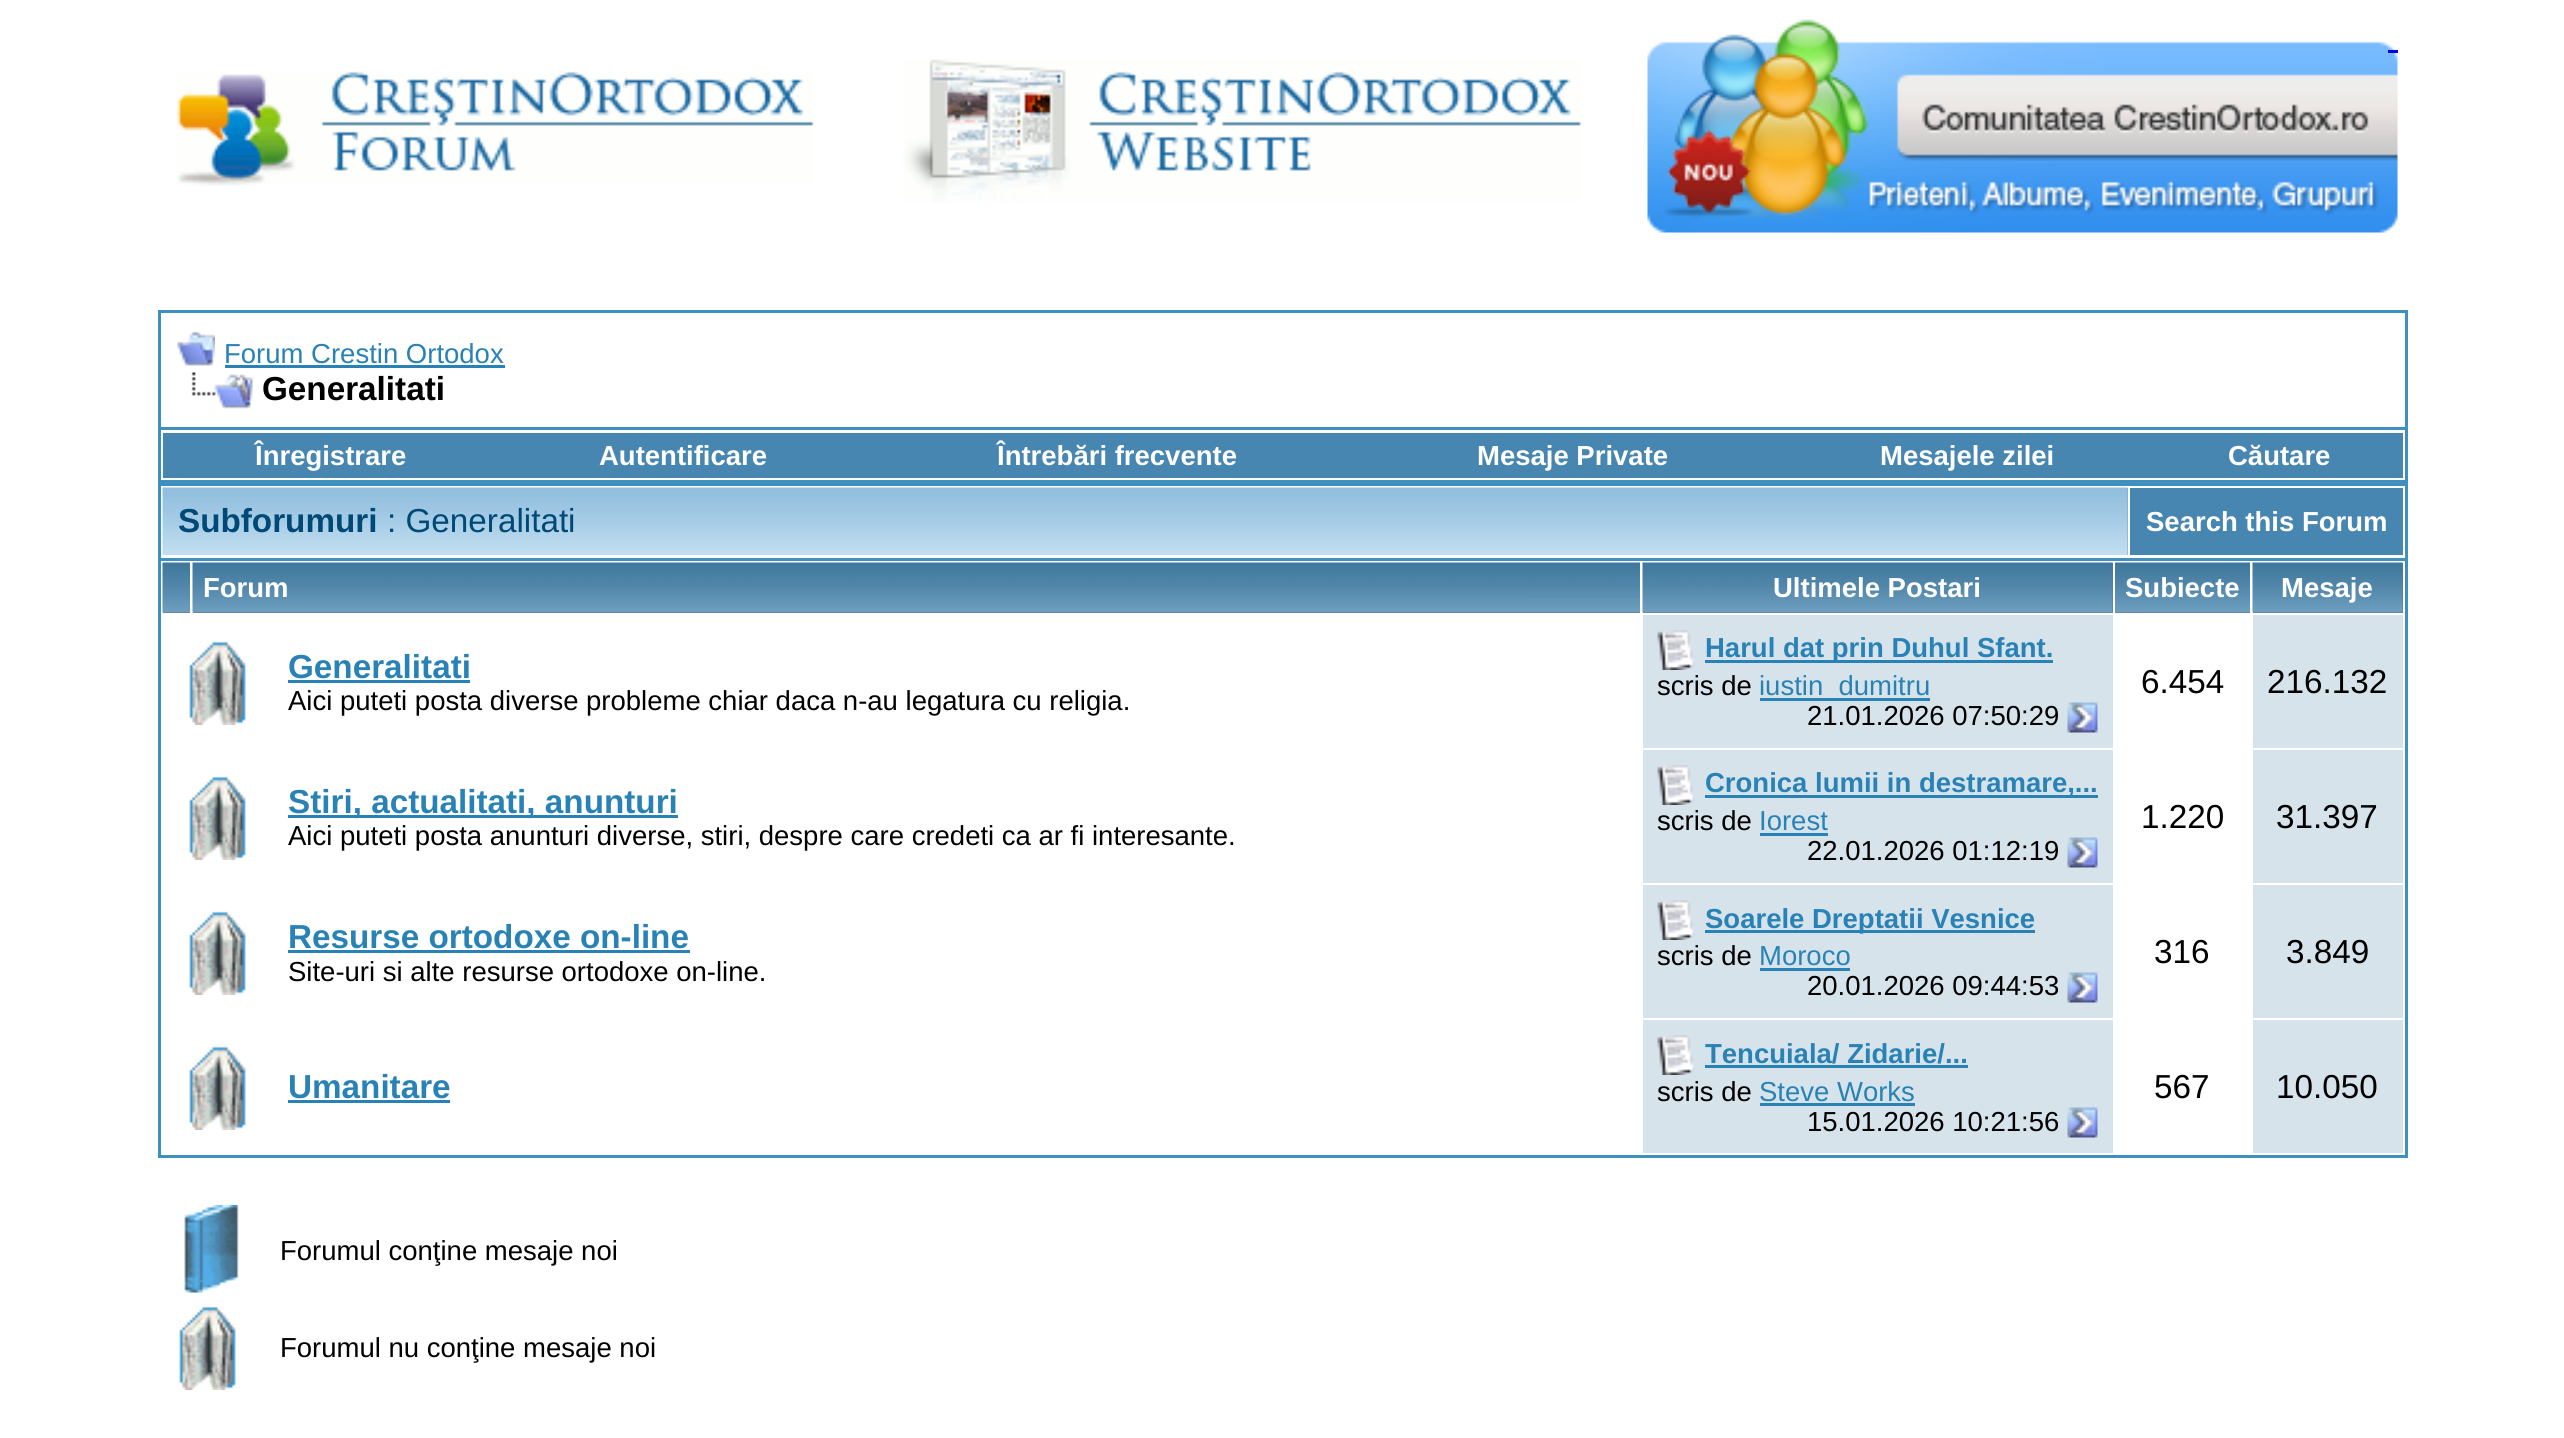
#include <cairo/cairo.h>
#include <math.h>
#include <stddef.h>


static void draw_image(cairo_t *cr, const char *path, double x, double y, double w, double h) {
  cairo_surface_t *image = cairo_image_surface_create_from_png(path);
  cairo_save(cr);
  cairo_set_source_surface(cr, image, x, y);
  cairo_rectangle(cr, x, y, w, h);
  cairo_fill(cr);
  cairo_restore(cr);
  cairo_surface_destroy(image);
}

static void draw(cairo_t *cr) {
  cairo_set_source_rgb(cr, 1, 1, 1);
  cairo_paint(cr);
  draw_image(cr, "images/1.png", 176, 71, 638, 115);
  draw_image(cr, "images/2.png", 903, 59, 678, 144);
  draw_image(cr, "images/3.png", 1647, 19, 751, 214);
  cairo_set_source_rgb(cr, 0, 0, 238 / 255.0);
  cairo_rectangle(cr, 2388, 50, 10, 3);
  cairo_fill(cr);
  cairo_rectangle(cr, 159.5, 311.5, 2247, 117);
  cairo_set_source_rgb(cr, 63 / 255.0, 144 / 255.0, 190 / 255.0);
  cairo_set_line_width(cr, 3);
  cairo_stroke(cr);
  draw_image(cr, "images/4.png", 177, 331, 38, 35);
  cairo_set_source_rgb(cr, 41 / 255.0, 130 / 255.0, 182 / 255.0);
  cairo_rectangle(cr, 225, 365, 280, 3);
  cairo_fill(cr);
  draw_image(cr, "images/5.png", 191, 372, 62, 37);
  cairo_set_source_rgb(cr, 63 / 255.0, 144 / 255.0, 190 / 255.0);
  cairo_rectangle(cr, 2405, 430, 3, 53);
  cairo_fill(cr);
  cairo_rectangle(cr, 158, 480, 2250, 6);
  cairo_fill(cr);
  cairo_rectangle(cr, 158, 430, 3, 128);
  cairo_fill(cr);
  cairo_set_source_rgb(cr, 70 / 255.0, 134 / 255.0, 176 / 255.0);
  cairo_rectangle(cr, 163, 433, 2240, 45);
  cairo_fill(cr);
  cairo_set_source_rgb(cr, 63 / 255.0, 144 / 255.0, 190 / 255.0);
  cairo_rectangle(cr, 2405, 483, 3, 75);
  cairo_fill(cr);
  cairo_set_source_rgb(cr, 134 / 255.0, 155 / 255.0, 191 / 255.0);
  cairo_rectangle(cr, 2127, 488, 1, 67);
  cairo_fill(cr);
  draw_image(cr, "images/6.png", 162, 487, 1966, 68);
  cairo_set_source_rgb(cr, 70 / 255.0, 134 / 255.0, 176 / 255.0);
  cairo_rectangle(cr, 2130, 488, 273, 67);
  cairo_fill(cr);
  cairo_rectangle(cr, 159.5, 559.5, 2247, 597);
  cairo_set_source_rgb(cr, 63 / 255.0, 144 / 255.0, 190 / 255.0);
  cairo_stroke(cr);
  cairo_set_source_rgb(cr, 92 / 255.0, 112 / 255.0, 153 / 255.0);
  cairo_rectangle(cr, 163, 612, 27, 1);
  cairo_fill(cr);
  draw_image(cr, "images/7.png", 162, 562, 28, 51);
  cairo_rectangle(cr, 193, 612, 1447, 1);
  cairo_fill(cr);
  draw_image(cr, "images/8.png", 192, 562, 1448, 51);
  cairo_rectangle(cr, 1643, 563, 470, 50);
  cairo_fill(cr);
  draw_image(cr, "images/9.png", 1642, 562, 471, 51);
  cairo_rectangle(cr, 2115, 612, 135, 1);
  cairo_fill(cr);
  draw_image(cr, "images/10.png", 2115, 562, 135, 51);
  cairo_rectangle(cr, 2253, 563, 150, 50);
  cairo_fill(cr);
  draw_image(cr, "images/11.png", 2252, 562, 151, 51);
  draw_image(cr, "images/12.png", 189, 641, 57, 84);
  cairo_set_source_rgb(cr, 41 / 255.0, 130 / 255.0, 182 / 255.0);
  cairo_rectangle(cr, 288, 680, 182, 3);
  cairo_fill(cr);
  cairo_set_source_rgb(cr, 214 / 255.0, 227 / 255.0, 235 / 255.0);
  cairo_rectangle(cr, 1643, 615, 470, 133);
  cairo_fill(cr);
  draw_image(cr, "images/13.png", 1657, 630, 38, 40);
  cairo_set_source_rgb(cr, 41 / 255.0, 130 / 255.0, 182 / 255.0);
  cairo_rectangle(cr, 1705, 660, 348, 3);
  cairo_fill(cr);
  cairo_rectangle(cr, 1760, 698, 170, 3);
  cairo_fill(cr);
  draw_image(cr, "images/14.png", 2067, 702, 31, 31);
  cairo_set_source_rgb(cr, 214 / 255.0, 227 / 255.0, 235 / 255.0);
  cairo_rectangle(cr, 2253, 615, 150, 133);
  cairo_fill(cr);
  draw_image(cr, "images/15.png", 189, 776, 57, 84);
  cairo_set_source_rgb(cr, 41 / 255.0, 130 / 255.0, 182 / 255.0);
  cairo_rectangle(cr, 288, 815, 390, 3);
  cairo_fill(cr);
  cairo_set_source_rgb(cr, 214 / 255.0, 227 / 255.0, 235 / 255.0);
  cairo_rectangle(cr, 1643, 750, 470, 133);
  cairo_fill(cr);
  draw_image(cr, "images/13.png", 1657, 765, 38, 40);
  cairo_set_source_rgb(cr, 41 / 255.0, 130 / 255.0, 182 / 255.0);
  cairo_rectangle(cr, 1705, 795, 393, 3);
  cairo_fill(cr);
  cairo_rectangle(cr, 1760, 833, 68, 3);
  cairo_fill(cr);
  draw_image(cr, "images/14.png", 2067, 837, 31, 31);
  cairo_set_source_rgb(cr, 214 / 255.0, 227 / 255.0, 235 / 255.0);
  cairo_rectangle(cr, 2253, 750, 150, 133);
  cairo_fill(cr);
  draw_image(cr, "images/12.png", 189, 911, 57, 84);
  cairo_set_source_rgb(cr, 41 / 255.0, 130 / 255.0, 182 / 255.0);
  cairo_rectangle(cr, 288, 950, 402, 3);
  cairo_fill(cr);
  cairo_set_source_rgb(cr, 214 / 255.0, 227 / 255.0, 235 / 255.0);
  cairo_rectangle(cr, 1643, 885, 470, 133);
  cairo_fill(cr);
  draw_image(cr, "images/13.png", 1657, 900, 38, 40);
  cairo_set_source_rgb(cr, 41 / 255.0, 130 / 255.0, 182 / 255.0);
  cairo_rectangle(cr, 1705, 930, 330, 3);
  cairo_fill(cr);
  cairo_rectangle(cr, 1760, 968, 90, 3);
  cairo_fill(cr);
  draw_image(cr, "images/14.png", 2067, 972, 31, 31);
  cairo_set_source_rgb(cr, 214 / 255.0, 227 / 255.0, 235 / 255.0);
  cairo_rectangle(cr, 2253, 885, 150, 133);
  cairo_fill(cr);
  draw_image(cr, "images/12.png", 189, 1046, 57, 84);
  cairo_set_source_rgb(cr, 41 / 255.0, 130 / 255.0, 182 / 255.0);
  cairo_rectangle(cr, 288, 1100, 162, 3);
  cairo_fill(cr);
  cairo_set_source_rgb(cr, 214 / 255.0, 227 / 255.0, 235 / 255.0);
  cairo_rectangle(cr, 1643, 1020, 470, 133);
  cairo_fill(cr);
  draw_image(cr, "images/13.png", 1657, 1035, 38, 40);
  cairo_set_source_rgb(cr, 41 / 255.0, 130 / 255.0, 182 / 255.0);
  cairo_rectangle(cr, 1705, 1065, 263, 3);
  cairo_fill(cr);
  cairo_rectangle(cr, 1760, 1103, 155, 3);
  cairo_fill(cr);
  draw_image(cr, "images/14.png", 2067, 1107, 31, 31);
  cairo_set_source_rgb(cr, 214 / 255.0, 227 / 255.0, 235 / 255.0);
  cairo_rectangle(cr, 2253, 1020, 150, 133);
  cairo_fill(cr);
  draw_image(cr, "images/16.png", 184, 1205, 55, 88);
  draw_image(cr, "images/12.png", 179, 1306, 57, 84);
  cairo_select_font_face(cr, "Liberation Sans", CAIRO_FONT_SLANT_NORMAL, CAIRO_FONT_WEIGHT_NORMAL);
  cairo_set_font_size(cr, 27.5);
  cairo_set_source_rgb(cr, 41 / 255.0, 130 / 255.0, 182 / 255.0);
  cairo_move_to(cr, 224, 363);
  cairo_show_text(cr, "Forum Crestin Ortodox");
  cairo_select_font_face(cr, "Liberation Sans", CAIRO_FONT_SLANT_NORMAL, CAIRO_FONT_WEIGHT_BOLD);
  cairo_set_font_size(cr, 33.25);
  cairo_set_source_rgb(cr, 0, 0, 0);
  cairo_move_to(cr, 262, 400);
  cairo_show_text(cr, "Generalitati");
  cairo_set_font_size(cr, 27.5);
  cairo_set_source_rgb(cr, 1, 1, 1);
  cairo_move_to(cr, 255, 465);
  cairo_show_text(cr, "Înregistrare");
  cairo_move_to(cr, 599, 465);
  cairo_show_text(cr, "Autentificare");
  cairo_move_to(cr, 997, 465);
  cairo_show_text(cr, "Întrebări frecvente");
  cairo_move_to(cr, 1477, 465);
  cairo_show_text(cr, "Mesaje Private");
  cairo_move_to(cr, 1880, 465);
  cairo_show_text(cr, "Mesajele zilei");
  cairo_move_to(cr, 2228, 465);
  cairo_show_text(cr, "Căutare");
  cairo_set_font_size(cr, 33.25);
  cairo_set_source_rgb(cr, 0, 73 / 255.0, 118 / 255.0);
  cairo_move_to(cr, 178, 532);
  cairo_show_text(cr, "Subforumuri");
  cairo_select_font_face(cr, "Liberation Sans", CAIRO_FONT_SLANT_NORMAL, CAIRO_FONT_WEIGHT_NORMAL);
  cairo_move_to(cr, 387, 532);
  cairo_show_text(cr, ": Generalitati");
  cairo_select_font_face(cr, "Liberation Sans", CAIRO_FONT_SLANT_NORMAL, CAIRO_FONT_WEIGHT_BOLD);
  cairo_set_font_size(cr, 27.5);
  cairo_set_source_rgb(cr, 1, 1, 1);
  cairo_move_to(cr, 2146, 531);
  cairo_show_text(cr, "Search this Forum");
  cairo_move_to(cr, 203, 597);
  cairo_show_text(cr, "Forum");
  cairo_move_to(cr, 1773, 597);
  cairo_show_text(cr, "Ultimele Postari");
  cairo_move_to(cr, 2125, 597);
  cairo_show_text(cr, "Subiecte");
  cairo_move_to(cr, 2281, 597);
  cairo_show_text(cr, "Mesaje");
  cairo_set_font_size(cr, 33.25);
  cairo_set_source_rgb(cr, 41 / 255.0, 130 / 255.0, 182 / 255.0);
  cairo_move_to(cr, 288, 678);
  cairo_show_text(cr, "Generalitati");
  cairo_select_font_face(cr, "Liberation Sans", CAIRO_FONT_SLANT_NORMAL, CAIRO_FONT_WEIGHT_NORMAL);
  cairo_set_font_size(cr, 27.5);
  cairo_set_source_rgb(cr, 0, 0, 0);
  cairo_move_to(cr, 288, 710);
  cairo_show_text(cr, "Aici puteti posta diverse probleme chiar daca n-au legatura cu religia.");
  cairo_select_font_face(cr, "Liberation Sans", CAIRO_FONT_SLANT_NORMAL, CAIRO_FONT_WEIGHT_BOLD);
  cairo_set_source_rgb(cr, 41 / 255.0, 130 / 255.0, 182 / 255.0);
  cairo_move_to(cr, 1705, 657);
  cairo_show_text(cr, "Harul dat prin Duhul Sfant.");
  cairo_select_font_face(cr, "Liberation Sans", CAIRO_FONT_SLANT_NORMAL, CAIRO_FONT_WEIGHT_NORMAL);
  cairo_set_source_rgb(cr, 0, 0, 0);
  cairo_move_to(cr, 1657, 695);
  cairo_show_text(cr, "scris de");
  cairo_set_source_rgb(cr, 41 / 255.0, 130 / 255.0, 182 / 255.0);
  cairo_move_to(cr, 1759, 695);
  cairo_show_text(cr, "iustin_dumitru");
  cairo_set_source_rgb(cr, 0, 0, 0);
  cairo_move_to(cr, 1807, 725);
  cairo_show_text(cr, "21.01.2026 07:50:29");
  cairo_set_font_size(cr, 33.25);
  cairo_move_to(cr, 2141, 693);
  cairo_show_text(cr, "6.454");
  cairo_move_to(cr, 2267, 693);
  cairo_show_text(cr, "216.132");
  cairo_select_font_face(cr, "Liberation Sans", CAIRO_FONT_SLANT_NORMAL, CAIRO_FONT_WEIGHT_BOLD);
  cairo_set_source_rgb(cr, 41 / 255.0, 130 / 255.0, 182 / 255.0);
  cairo_move_to(cr, 288, 813);
  cairo_show_text(cr, "Stiri, actualitati, anunturi");
  cairo_select_font_face(cr, "Liberation Sans", CAIRO_FONT_SLANT_NORMAL, CAIRO_FONT_WEIGHT_NORMAL);
  cairo_set_font_size(cr, 27.5);
  cairo_set_source_rgb(cr, 0, 0, 0);
  cairo_move_to(cr, 288, 845);
  cairo_show_text(cr, "Aici puteti posta anunturi diverse, stiri, despre care credeti ca ar fi interesante.");
  cairo_select_font_face(cr, "Liberation Sans", CAIRO_FONT_SLANT_NORMAL, CAIRO_FONT_WEIGHT_BOLD);
  cairo_set_source_rgb(cr, 41 / 255.0, 130 / 255.0, 182 / 255.0);
  cairo_move_to(cr, 1705, 792);
  cairo_show_text(cr, "Cronica lumii in destramare,...");
  cairo_select_font_face(cr, "Liberation Sans", CAIRO_FONT_SLANT_NORMAL, CAIRO_FONT_WEIGHT_NORMAL);
  cairo_set_source_rgb(cr, 0, 0, 0);
  cairo_move_to(cr, 1657, 830);
  cairo_show_text(cr, "scris de");
  cairo_set_source_rgb(cr, 41 / 255.0, 130 / 255.0, 182 / 255.0);
  cairo_move_to(cr, 1759, 830);
  cairo_show_text(cr, "Iorest");
  cairo_set_source_rgb(cr, 0, 0, 0);
  cairo_move_to(cr, 1807, 860);
  cairo_show_text(cr, "22.01.2026 01:12:19");
  cairo_set_font_size(cr, 33.25);
  cairo_move_to(cr, 2141, 828);
  cairo_show_text(cr, "1.220");
  cairo_move_to(cr, 2276, 828);
  cairo_show_text(cr, "31.397");
  cairo_select_font_face(cr, "Liberation Sans", CAIRO_FONT_SLANT_NORMAL, CAIRO_FONT_WEIGHT_BOLD);
  cairo_set_source_rgb(cr, 41 / 255.0, 130 / 255.0, 182 / 255.0);
  cairo_move_to(cr, 288, 948);
  cairo_show_text(cr, "Resurse ortodoxe on-line");
  cairo_select_font_face(cr, "Liberation Sans", CAIRO_FONT_SLANT_NORMAL, CAIRO_FONT_WEIGHT_NORMAL);
  cairo_set_font_size(cr, 27.5);
  cairo_set_source_rgb(cr, 0, 0, 0);
  cairo_move_to(cr, 288, 981);
  cairo_show_text(cr, "Site-uri si alte resurse ortodoxe on-line.");
  cairo_select_font_face(cr, "Liberation Sans", CAIRO_FONT_SLANT_NORMAL, CAIRO_FONT_WEIGHT_BOLD);
  cairo_set_source_rgb(cr, 41 / 255.0, 130 / 255.0, 182 / 255.0);
  cairo_move_to(cr, 1705, 928);
  cairo_show_text(cr, "Soarele Dreptatii Vesnice");
  cairo_select_font_face(cr, "Liberation Sans", CAIRO_FONT_SLANT_NORMAL, CAIRO_FONT_WEIGHT_NORMAL);
  cairo_set_source_rgb(cr, 0, 0, 0);
  cairo_move_to(cr, 1657, 965);
  cairo_show_text(cr, "scris de");
  cairo_set_source_rgb(cr, 41 / 255.0, 130 / 255.0, 182 / 255.0);
  cairo_move_to(cr, 1759, 965);
  cairo_show_text(cr, "Moroco");
  cairo_set_source_rgb(cr, 0, 0, 0);
  cairo_move_to(cr, 1807, 995);
  cairo_show_text(cr, "20.01.2026 09:44:53");
  cairo_set_font_size(cr, 33.25);
  cairo_move_to(cr, 2154, 963);
  cairo_show_text(cr, "316");
  cairo_move_to(cr, 2286, 963);
  cairo_show_text(cr, "3.849");
  cairo_select_font_face(cr, "Liberation Sans", CAIRO_FONT_SLANT_NORMAL, CAIRO_FONT_WEIGHT_BOLD);
  cairo_set_source_rgb(cr, 41 / 255.0, 130 / 255.0, 182 / 255.0);
  cairo_move_to(cr, 288, 1098);
  cairo_show_text(cr, "Umanitare");
  cairo_set_font_size(cr, 27.5);
  cairo_move_to(cr, 1705, 1063);
  cairo_show_text(cr, "Tencuiala/ Zidarie/...");
  cairo_select_font_face(cr, "Liberation Sans", CAIRO_FONT_SLANT_NORMAL, CAIRO_FONT_WEIGHT_NORMAL);
  cairo_set_source_rgb(cr, 0, 0, 0);
  cairo_move_to(cr, 1657, 1101);
  cairo_show_text(cr, "scris de");
  cairo_set_source_rgb(cr, 41 / 255.0, 130 / 255.0, 182 / 255.0);
  cairo_move_to(cr, 1759, 1101);
  cairo_show_text(cr, "Steve Works");
  cairo_set_source_rgb(cr, 0, 0, 0);
  cairo_move_to(cr, 1807, 1131);
  cairo_show_text(cr, "15.01.2026 10:21:56");
  cairo_set_font_size(cr, 33.25);
  cairo_move_to(cr, 2154, 1098);
  cairo_show_text(cr, "567");
  cairo_move_to(cr, 2276, 1098);
  cairo_show_text(cr, "10.050");
  cairo_set_font_size(cr, 27.5);
  cairo_move_to(cr, 280, 1260);
  cairo_show_text(cr, "Forumul conţine mesaje noi");
  cairo_move_to(cr, 280, 1357);
  cairo_show_text(cr, "Forumul nu conţine mesaje noi");
}

int main(void) {
  cairo_surface_t *surface = cairo_image_surface_create(CAIRO_FORMAT_RGB24, 2564, 1438);
  cairo_t *cr = cairo_create(surface);
  cairo_font_options_t *options = cairo_font_options_create();
  cairo_font_options_set_hint_metrics(options, CAIRO_HINT_METRICS_OFF);
  cairo_font_options_set_hint_style(options, CAIRO_HINT_STYLE_NONE);
  cairo_set_font_options(cr, options);
  cairo_set_miter_limit(cr, 4);
  draw(cr);
  cairo_surface_write_to_png(surface, "out.png");
  cairo_font_options_destroy(options);
  cairo_destroy(cr);
  cairo_surface_destroy(surface);
  return 0;
}
